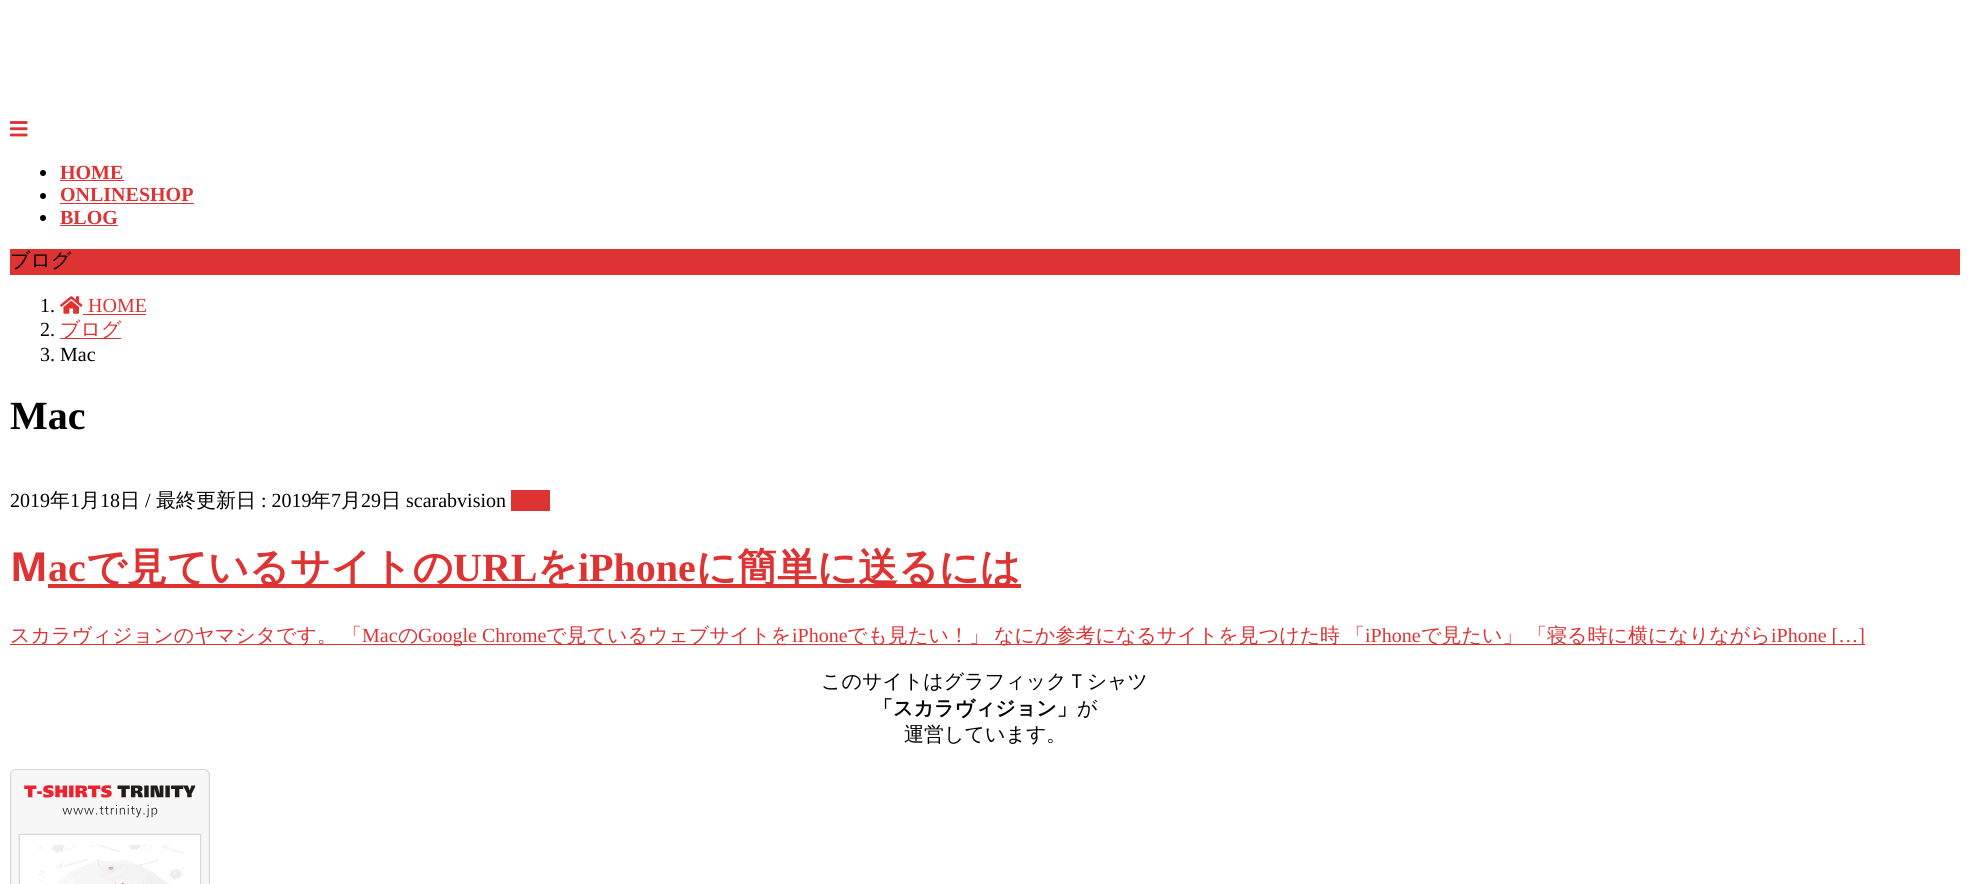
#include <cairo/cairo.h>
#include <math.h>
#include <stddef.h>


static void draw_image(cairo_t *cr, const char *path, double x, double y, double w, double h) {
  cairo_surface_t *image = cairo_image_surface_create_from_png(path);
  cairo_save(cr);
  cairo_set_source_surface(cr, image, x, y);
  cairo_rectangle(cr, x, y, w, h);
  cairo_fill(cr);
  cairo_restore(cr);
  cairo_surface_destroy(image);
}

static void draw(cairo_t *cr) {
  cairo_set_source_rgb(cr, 1, 1, 1);
  cairo_paint(cr);
  draw_image(cr, "images/1.png", 10, 121, 18, 16);
  cairo_set_source_rgb(cr, 0, 0, 0);
  cairo_arc(cr, 43, 173, 3, 0, 2 * M_PI);
  cairo_fill(cr);
  cairo_set_source_rgb(cr, 221 / 255.0, 51 / 255.0, 51 / 255.0);
  cairo_rectangle(cr, 60, 180, 64, 1);
  cairo_fill(cr);
  cairo_set_source_rgb(cr, 0, 0, 0);
  cairo_arc(cr, 43, 196, 3, 0, 2 * M_PI);
  cairo_fill(cr);
  cairo_set_source_rgb(cr, 221 / 255.0, 51 / 255.0, 51 / 255.0);
  cairo_rectangle(cr, 60, 203, 134, 1);
  cairo_fill(cr);
  cairo_set_source_rgb(cr, 0, 0, 0);
  cairo_arc(cr, 43, 218, 3, 0, 2 * M_PI);
  cairo_fill(cr);
  cairo_set_source_rgb(cr, 221 / 255.0, 51 / 255.0, 51 / 255.0);
  cairo_rectangle(cr, 60, 225, 58, 1);
  cairo_fill(cr);
  cairo_rectangle(cr, 10, 249, 1950, 26);
  cairo_fill(cr);
  draw_image(cr, "images/2.png", 60, 296, 23, 18);
  cairo_rectangle(cr, 83, 314, 63, 1);
  cairo_fill(cr);
  cairo_rectangle(cr, 60, 338, 61, 1);
  cairo_fill(cr);
  cairo_rectangle(cr, 511, 490, 39, 21);
  cairo_fill(cr);
  cairo_rectangle(cr, 48, 584, 973, 4);
  cairo_fill(cr);
  cairo_rectangle(cr, 10, 644, 1855, 1);
  cairo_fill(cr);
  draw_image(cr, "images/3.png", 10, 769, 200, 115);
  cairo_select_font_face(cr, "Liberation Serif", CAIRO_FONT_SLANT_NORMAL, CAIRO_FONT_WEIGHT_BOLD);
  cairo_set_font_size(cr, 20);
  cairo_move_to(cr, 60, 179);
  cairo_show_text(cr, "HOME");
  cairo_move_to(cr, 60, 201);
  cairo_show_text(cr, "ONLINESHOP");
  cairo_move_to(cr, 60, 224);
  cairo_show_text(cr, "BLOG");
  cairo_select_font_face(cr, "WenQuanYi Zen Hei Medium", CAIRO_FONT_SLANT_NORMAL, CAIRO_FONT_WEIGHT_NORMAL);
  cairo_set_source_rgb(cr, 0, 0, 0);
  cairo_move_to(cr, 10, 267);
  cairo_show_text(cr, "ブログ");
  cairo_select_font_face(cr, "Liberation Serif", CAIRO_FONT_SLANT_NORMAL, CAIRO_FONT_WEIGHT_NORMAL);
  cairo_move_to(cr, 40, 312);
  cairo_show_text(cr, "1.");
  cairo_set_source_rgb(cr, 221 / 255.0, 51 / 255.0, 51 / 255.0);
  cairo_move_to(cr, 88, 312);
  cairo_show_text(cr, "HOME");
  cairo_set_source_rgb(cr, 0, 0, 0);
  cairo_move_to(cr, 40, 336);
  cairo_show_text(cr, "2.");
  cairo_select_font_face(cr, "WenQuanYi Zen Hei Medium", CAIRO_FONT_SLANT_NORMAL, CAIRO_FONT_WEIGHT_NORMAL);
  cairo_set_source_rgb(cr, 221 / 255.0, 51 / 255.0, 51 / 255.0);
  cairo_move_to(cr, 60, 336);
  cairo_show_text(cr, "ブログ");
  cairo_select_font_face(cr, "Liberation Serif", CAIRO_FONT_SLANT_NORMAL, CAIRO_FONT_WEIGHT_NORMAL);
  cairo_set_source_rgb(cr, 0, 0, 0);
  cairo_move_to(cr, 40, 361);
  cairo_show_text(cr, "3. Mac");
  cairo_select_font_face(cr, "Liberation Serif", CAIRO_FONT_SLANT_NORMAL, CAIRO_FONT_WEIGHT_BOLD);
  cairo_set_font_size(cr, 40);
  cairo_move_to(cr, 10, 429);
  cairo_show_text(cr, "Mac");
  cairo_select_font_face(cr, "Liberation Serif", CAIRO_FONT_SLANT_NORMAL, CAIRO_FONT_WEIGHT_NORMAL);
  cairo_set_font_size(cr, 20);
  cairo_move_to(cr, 10, 507);
  cairo_show_text(cr, "2019");
  cairo_select_font_face(cr, "WenQuanYi Zen Hei Medium", CAIRO_FONT_SLANT_NORMAL, CAIRO_FONT_WEIGHT_NORMAL);
  cairo_move_to(cr, 50, 507);
  cairo_show_text(cr, "年");
  cairo_select_font_face(cr, "Liberation Serif", CAIRO_FONT_SLANT_NORMAL, CAIRO_FONT_WEIGHT_NORMAL);
  cairo_move_to(cr, 70, 507);
  cairo_show_text(cr, "1");
  cairo_select_font_face(cr, "WenQuanYi Zen Hei Medium", CAIRO_FONT_SLANT_NORMAL, CAIRO_FONT_WEIGHT_NORMAL);
  cairo_move_to(cr, 80, 507);
  cairo_show_text(cr, "月");
  cairo_select_font_face(cr, "Liberation Serif", CAIRO_FONT_SLANT_NORMAL, CAIRO_FONT_WEIGHT_NORMAL);
  cairo_move_to(cr, 100, 507);
  cairo_show_text(cr, "18");
  cairo_select_font_face(cr, "WenQuanYi Zen Hei Medium", CAIRO_FONT_SLANT_NORMAL, CAIRO_FONT_WEIGHT_NORMAL);
  cairo_move_to(cr, 120, 507);
  cairo_show_text(cr, "日");
  cairo_select_font_face(cr, "Liberation Serif", CAIRO_FONT_SLANT_NORMAL, CAIRO_FONT_WEIGHT_NORMAL);
  cairo_move_to(cr, 145, 507);
  cairo_show_text(cr, "/");
  cairo_select_font_face(cr, "WenQuanYi Zen Hei Medium", CAIRO_FONT_SLANT_NORMAL, CAIRO_FONT_WEIGHT_NORMAL);
  cairo_move_to(cr, 156, 507);
  cairo_show_text(cr, "最終更新日");
  cairo_select_font_face(cr, "Liberation Serif", CAIRO_FONT_SLANT_NORMAL, CAIRO_FONT_WEIGHT_NORMAL);
  cairo_move_to(cr, 261, 507);
  cairo_show_text(cr, ": 2019");
  cairo_select_font_face(cr, "WenQuanYi Zen Hei Medium", CAIRO_FONT_SLANT_NORMAL, CAIRO_FONT_WEIGHT_NORMAL);
  cairo_move_to(cr, 311, 507);
  cairo_show_text(cr, "年");
  cairo_select_font_face(cr, "Liberation Serif", CAIRO_FONT_SLANT_NORMAL, CAIRO_FONT_WEIGHT_NORMAL);
  cairo_move_to(cr, 331, 507);
  cairo_show_text(cr, "7");
  cairo_select_font_face(cr, "WenQuanYi Zen Hei Medium", CAIRO_FONT_SLANT_NORMAL, CAIRO_FONT_WEIGHT_NORMAL);
  cairo_move_to(cr, 341, 507);
  cairo_show_text(cr, "月");
  cairo_select_font_face(cr, "Liberation Serif", CAIRO_FONT_SLANT_NORMAL, CAIRO_FONT_WEIGHT_NORMAL);
  cairo_move_to(cr, 361, 507);
  cairo_show_text(cr, "29");
  cairo_select_font_face(cr, "WenQuanYi Zen Hei Medium", CAIRO_FONT_SLANT_NORMAL, CAIRO_FONT_WEIGHT_NORMAL);
  cairo_move_to(cr, 381, 507);
  cairo_show_text(cr, "日");
  cairo_select_font_face(cr, "Liberation Serif", CAIRO_FONT_SLANT_NORMAL, CAIRO_FONT_WEIGHT_NORMAL);
  cairo_move_to(cr, 406, 507);
  cairo_show_text(cr, "scarabvision");
  cairo_select_font_face(cr, "Noto Sans", CAIRO_FONT_SLANT_NORMAL, CAIRO_FONT_WEIGHT_BOLD);
  cairo_set_font_size(cr, 40);
  cairo_set_source_rgb(cr, 221 / 255.0, 51 / 255.0, 51 / 255.0);
  cairo_move_to(cr, 10, 581);
  cairo_show_text(cr, "M");
  cairo_select_font_face(cr, "Liberation Serif", CAIRO_FONT_SLANT_NORMAL, CAIRO_FONT_WEIGHT_BOLD);
  cairo_move_to(cr, 48, 581);
  cairo_show_text(cr, "ac");
  cairo_select_font_face(cr, "WenQuanYi Zen Hei", CAIRO_FONT_SLANT_NORMAL, CAIRO_FONT_WEIGHT_BOLD);
  cairo_move_to(cr, 86, 581);
  cairo_show_text(cr, "で見ているサイトの");
  cairo_select_font_face(cr, "Liberation Serif", CAIRO_FONT_SLANT_NORMAL, CAIRO_FONT_WEIGHT_BOLD);
  cairo_move_to(cr, 453, 581);
  cairo_show_text(cr, "URL");
  cairo_select_font_face(cr, "WenQuanYi Zen Hei", CAIRO_FONT_SLANT_NORMAL, CAIRO_FONT_WEIGHT_BOLD);
  cairo_move_to(cr, 537, 581);
  cairo_show_text(cr, "を");
  cairo_select_font_face(cr, "Liberation Serif", CAIRO_FONT_SLANT_NORMAL, CAIRO_FONT_WEIGHT_BOLD);
  cairo_move_to(cr, 578, 581);
  cairo_show_text(cr, "iPhone");
  cairo_select_font_face(cr, "WenQuanYi Zen Hei", CAIRO_FONT_SLANT_NORMAL, CAIRO_FONT_WEIGHT_BOLD);
  cairo_move_to(cr, 696, 581);
  cairo_show_text(cr, "に簡単に送るには");
  cairo_select_font_face(cr, "WenQuanYi Zen Hei Medium", CAIRO_FONT_SLANT_NORMAL, CAIRO_FONT_WEIGHT_NORMAL);
  cairo_set_font_size(cr, 20);
  cairo_move_to(cr, 10, 642);
  cairo_show_text(cr, "スカラヴィジョンのヤマシタです。");
  cairo_move_to(cr, 342, 642);
  cairo_show_text(cr, "「");
  cairo_select_font_face(cr, "Liberation Serif", CAIRO_FONT_SLANT_NORMAL, CAIRO_FONT_WEIGHT_NORMAL);
  cairo_move_to(cr, 362, 642);
  cairo_show_text(cr, "Mac");
  cairo_select_font_face(cr, "WenQuanYi Zen Hei Medium", CAIRO_FONT_SLANT_NORMAL, CAIRO_FONT_WEIGHT_NORMAL);
  cairo_move_to(cr, 398, 642);
  cairo_show_text(cr, "の");
  cairo_select_font_face(cr, "Liberation Serif", CAIRO_FONT_SLANT_NORMAL, CAIRO_FONT_WEIGHT_NORMAL);
  cairo_move_to(cr, 418, 642);
  cairo_show_text(cr, "Google Chrome");
  cairo_select_font_face(cr, "WenQuanYi Zen Hei Medium", CAIRO_FONT_SLANT_NORMAL, CAIRO_FONT_WEIGHT_NORMAL);
  cairo_move_to(cr, 546, 642);
  cairo_show_text(cr, "で見ているウェブサイトを");
  cairo_select_font_face(cr, "Liberation Serif", CAIRO_FONT_SLANT_NORMAL, CAIRO_FONT_WEIGHT_NORMAL);
  cairo_move_to(cr, 792, 642);
  cairo_show_text(cr, "iPhone");
  cairo_select_font_face(cr, "WenQuanYi Zen Hei Medium", CAIRO_FONT_SLANT_NORMAL, CAIRO_FONT_WEIGHT_NORMAL);
  cairo_move_to(cr, 847, 642);
  cairo_show_text(cr, "でも見たい！」");
  cairo_move_to(cr, 994, 642);
  cairo_show_text(cr, "なにか参考になるサイトを見つけた時");
  cairo_move_to(cr, 1345, 642);
  cairo_show_text(cr, "「");
  cairo_select_font_face(cr, "Liberation Serif", CAIRO_FONT_SLANT_NORMAL, CAIRO_FONT_WEIGHT_NORMAL);
  cairo_move_to(cr, 1365, 642);
  cairo_show_text(cr, "iPhone");
  cairo_select_font_face(cr, "WenQuanYi Zen Hei Medium", CAIRO_FONT_SLANT_NORMAL, CAIRO_FONT_WEIGHT_NORMAL);
  cairo_move_to(cr, 1421, 642);
  cairo_show_text(cr, "で見たい」");
  cairo_move_to(cr, 1527, 642);
  cairo_show_text(cr, "「寝る時に横になりながら");
  cairo_select_font_face(cr, "Liberation Serif", CAIRO_FONT_SLANT_NORMAL, CAIRO_FONT_WEIGHT_NORMAL);
  cairo_move_to(cr, 1771, 642);
  cairo_show_text(cr, "iPhone […]");
  cairo_select_font_face(cr, "WenQuanYi Zen Hei Medium", CAIRO_FONT_SLANT_NORMAL, CAIRO_FONT_WEIGHT_NORMAL);
  cairo_set_source_rgb(cr, 0, 0, 0);
  cairo_move_to(cr, 821, 688);
  cairo_show_text(cr, "このサイトはグラフィックＴシャツ");
  cairo_select_font_face(cr, "WenQuanYi Zen Hei", CAIRO_FONT_SLANT_NORMAL, CAIRO_FONT_WEIGHT_BOLD);
  cairo_move_to(cr, 873, 715);
  cairo_show_text(cr, "「スカラヴィジョン」");
  cairo_select_font_face(cr, "WenQuanYi Zen Hei Medium", CAIRO_FONT_SLANT_NORMAL, CAIRO_FONT_WEIGHT_NORMAL);
  cairo_move_to(cr, 1077, 715);
  cairo_show_text(cr, "が");
  cairo_move_to(cr, 904, 741);
  cairo_show_text(cr, "運営しています。");
}

int main(void) {
  cairo_surface_t *surface = cairo_image_surface_create(CAIRO_FORMAT_RGB24, 1969, 884);
  cairo_t *cr = cairo_create(surface);
  cairo_font_options_t *options = cairo_font_options_create();
  cairo_font_options_set_hint_metrics(options, CAIRO_HINT_METRICS_OFF);
  cairo_font_options_set_hint_style(options, CAIRO_HINT_STYLE_NONE);
  cairo_set_font_options(cr, options);
  cairo_set_miter_limit(cr, 4);
  draw(cr);
  cairo_surface_write_to_png(surface, "out.png");
  cairo_font_options_destroy(options);
  cairo_destroy(cr);
  cairo_surface_destroy(surface);
  return 0;
}
